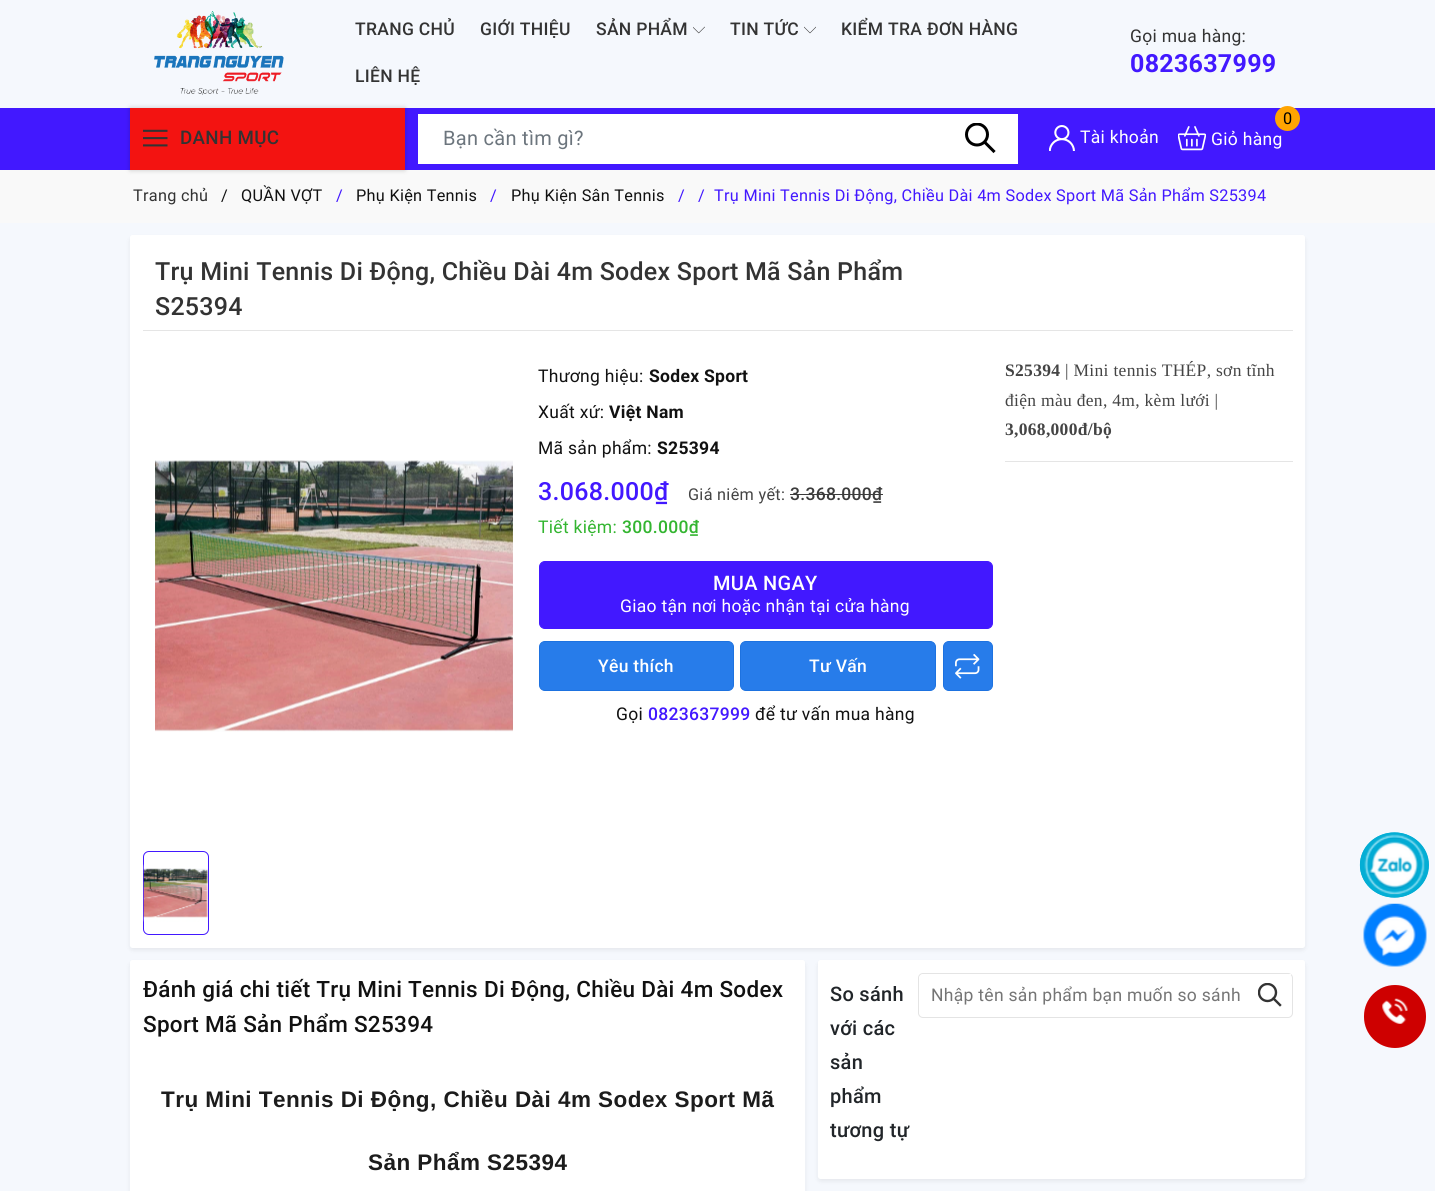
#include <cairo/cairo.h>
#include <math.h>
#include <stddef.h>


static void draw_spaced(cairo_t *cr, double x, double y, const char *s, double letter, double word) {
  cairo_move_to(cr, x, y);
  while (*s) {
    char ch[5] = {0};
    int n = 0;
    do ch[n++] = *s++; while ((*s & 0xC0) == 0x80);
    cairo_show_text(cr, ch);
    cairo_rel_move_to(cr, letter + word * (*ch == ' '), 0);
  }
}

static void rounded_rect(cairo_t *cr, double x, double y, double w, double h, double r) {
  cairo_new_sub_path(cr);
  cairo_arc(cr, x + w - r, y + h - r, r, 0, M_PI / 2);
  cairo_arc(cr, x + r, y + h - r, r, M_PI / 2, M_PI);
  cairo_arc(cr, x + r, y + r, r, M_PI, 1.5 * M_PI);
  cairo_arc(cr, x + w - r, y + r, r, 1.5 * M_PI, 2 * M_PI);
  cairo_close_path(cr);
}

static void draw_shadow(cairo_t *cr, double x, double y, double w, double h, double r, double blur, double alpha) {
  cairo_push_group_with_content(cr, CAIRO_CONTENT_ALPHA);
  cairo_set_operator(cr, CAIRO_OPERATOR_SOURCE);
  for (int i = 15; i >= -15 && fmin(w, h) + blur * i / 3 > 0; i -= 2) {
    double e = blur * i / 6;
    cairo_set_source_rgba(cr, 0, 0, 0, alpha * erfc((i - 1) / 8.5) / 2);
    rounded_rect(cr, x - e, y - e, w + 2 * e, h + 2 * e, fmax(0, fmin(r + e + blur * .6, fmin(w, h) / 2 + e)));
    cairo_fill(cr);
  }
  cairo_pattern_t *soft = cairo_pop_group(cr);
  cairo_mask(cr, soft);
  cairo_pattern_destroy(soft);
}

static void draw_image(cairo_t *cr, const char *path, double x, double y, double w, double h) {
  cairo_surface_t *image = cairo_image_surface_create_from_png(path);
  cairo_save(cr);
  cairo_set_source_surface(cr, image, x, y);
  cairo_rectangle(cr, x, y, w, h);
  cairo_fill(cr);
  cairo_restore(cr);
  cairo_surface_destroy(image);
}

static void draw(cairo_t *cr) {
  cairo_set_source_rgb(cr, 245 / 255.0, 248 / 255.0, 253 / 255.0);
  cairo_paint(cr);
  draw_image(cr, "images/1.png", 154, 11, 130, 84);
  draw_image(cr, "images/2.png", 693, 26, 12, 8);
  draw_image(cr, "images/3.png", 804, 26, 12, 8);
  cairo_set_source_rgb(cr, 66 / 255.0, 24 / 255.0, 1);
  cairo_rectangle(cr, 0, 108, 1435, 62);
  cairo_fill(cr);
  cairo_set_source_rgb(cr, 249 / 255.0, 249 / 255.0, 249 / 255.0);
  cairo_rectangle(cr, 0, 170, 1435, 53);
  cairo_fill(cr);
  cairo_set_source_rgb(cr, 0, 0, 0);
  draw_shadow(cr, 130, 108, 275, 62, 0, 2.5, 0.2);
  cairo_set_source_rgb(cr, 243 / 255.0, 19 / 255.0, 17 / 255.0);
  cairo_rectangle(cr, 130, 108, 275, 62);
  cairo_fill(cr);
  draw_image(cr, "images/4.png", 143, 129, 25, 18);
  cairo_set_source_rgb(cr, 1, 1, 1);
  cairo_rectangle(cr, 418, 114, 600, 50);
  cairo_fill(cr);
  cairo_new_path(cr);
  cairo_move_to(cr, 993.5, 151);
  cairo_line_to(cr, 985, 142.5);
  cairo_set_source_rgb(cr, 0, 0, 0);
  cairo_set_line_width(cr, 3);
  cairo_set_line_cap(cr, CAIRO_LINE_CAP_SQUARE);
  cairo_stroke(cr);
  cairo_save(cr);
  cairo_rectangle(cr, 965, 123, 31, 31);
  cairo_clip(cr);
  cairo_arc(cr, 977, 134.5, 10.5, 0, 2 * M_PI);
  cairo_set_line_cap(cr, CAIRO_LINE_CAP_BUTT);
  cairo_stroke(cr);
  cairo_restore(cr);
  draw_image(cr, "images/5.png", 1049, 125, 26, 26);
  cairo_set_source_rgb(cr, 1, 164 / 255.0, 0);
  cairo_arc(cr, 1287.5, 118.5, 12.5, 0, 2 * M_PI);
  cairo_fill(cr);
  draw_image(cr, "images/6.png", 1178, 126, 28, 25);
  cairo_set_source_rgb(cr, 0, 0, 0);
  draw_shadow(cr, 130, 238, 1175, 712, 2.5, 2.5, 0.07);
  cairo_set_source_rgb(cr, 1, 1, 1);
  rounded_rect(cr, 130, 235, 1175, 713, 2.5);
  cairo_fill(cr);
  cairo_set_source_rgb(cr, 229 / 255.0, 229 / 255.0, 229 / 255.0);
  cairo_rectangle(cr, 143, 330, 1150, 1);
  cairo_fill(cr);
  draw_image(cr, "images/7.png", 155, 460, 358, 272);
  rounded_rect(cr, 143.5, 851.5, 65, 83, 5.5);
  cairo_set_source_rgb(cr, 66 / 255.0, 24 / 255.0, 1);
  cairo_set_line_width(cr, 1);
  cairo_set_line_cap(cr, CAIRO_LINE_CAP_BUTT);
  cairo_stroke(cr);
  draw_image(cr, "images/8.png", 143, 864, 65, 58);
  cairo_set_source_rgb(cr, 60 / 255.0, 60 / 255.0, 60 / 255.0);
  cairo_rectangle(cr, 790, 494, 93, 1);
  cairo_fill(cr);
  cairo_set_source_rgb(cr, 66 / 255.0, 24 / 255.0, 1);
  rounded_rect(cr, 539.5, 561.5, 453, 67, 5.5);
  cairo_fill_preserve(cr);
  cairo_stroke(cr);
  cairo_set_source_rgb(cr, 39 / 255.0, 124 / 255.0, 234 / 255.0);
  rounded_rect(cr, 539.5, 641.5, 194, 49, 5.5);
  cairo_fill_preserve(cr);
  cairo_set_source_rgb(cr, 29 / 255.0, 114 / 255.0, 224 / 255.0);
  cairo_stroke(cr);
  cairo_set_source_rgb(cr, 39 / 255.0, 124 / 255.0, 234 / 255.0);
  rounded_rect(cr, 740.5, 641.5, 195, 49, 5.5);
  cairo_fill_preserve(cr);
  cairo_set_source_rgb(cr, 29 / 255.0, 114 / 255.0, 224 / 255.0);
  cairo_stroke(cr);
  cairo_set_source_rgb(cr, 39 / 255.0, 124 / 255.0, 234 / 255.0);
  rounded_rect(cr, 943.5, 641.5, 49, 49, 5.5);
  cairo_fill_preserve(cr);
  cairo_set_source_rgb(cr, 29 / 255.0, 114 / 255.0, 224 / 255.0);
  cairo_stroke(cr);
  draw_image(cr, "images/9.png", 955, 654, 25, 25);
  cairo_set_source_rgb(cr, 229 / 255.0, 229 / 255.0, 229 / 255.0);
  cairo_rectangle(cr, 1005, 461, 288, 1);
  cairo_fill(cr);
  cairo_set_source_rgb(cr, 0, 0, 0);
  draw_shadow(cr, 130, 963, 675, 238, 2.5, 2.5, 0.07);
  cairo_set_source_rgb(cr, 1, 1, 1);
  rounded_rect(cr, 130, 960, 675, 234, 2.5);
  cairo_fill(cr);
  cairo_set_source_rgb(cr, 0, 0, 0);
  draw_shadow(cr, 818, 963, 487, 218, 2.5, 2.5, 0.07);
  cairo_set_source_rgb(cr, 1, 1, 1);
  rounded_rect(cr, 818, 960, 487, 219, 2.5);
  cairo_fill(cr);
  rounded_rect(cr, 918.5, 973.5, 374, 44, 4.5);
  cairo_set_source_rgb(cr, 228 / 255.0, 228 / 255.0, 228 / 255.0);
  cairo_stroke(cr);
  cairo_set_source_rgb(cr, 1, 1, 1);
  rounded_rect(cr, 919, 974, 372, 42, 5);
  cairo_fill(cr);
  cairo_rectangle(cr, 1289, 974, 2, 1);
  cairo_fill(cr);
  cairo_new_path(cr);
  cairo_move_to(cr, 1280, 1005);
  cairo_line_to(cr, 1273.5, 998.5);
  cairo_set_source_rgb(cr, 51 / 255.0, 51 / 255.0, 51 / 255.0);
  cairo_set_line_width(cr, 2.4);
  cairo_set_line_cap(cr, CAIRO_LINE_CAP_SQUARE);
  cairo_stroke(cr);
  cairo_save(cr);
  cairo_rectangle(cr, 1258, 983, 25, 25);
  cairo_clip(cr);
  cairo_arc(cr, 1267.5, 992.5, 8.5, 0, 2 * M_PI);
  cairo_set_line_cap(cr, CAIRO_LINE_CAP_BUTT);
  cairo_stroke(cr);
  cairo_restore(cr);
  cairo_set_source_rgb(cr, 3 / 255.0, 174 / 255.0, 213 / 255.0);
  cairo_new_path(cr);
  cairo_move_to(cr, 1394.5, 832.5);
  cairo_curve_to(cr, 1413.5, 832.5, 1429, 847, 1429, 865);
  cairo_curve_to(cr, 1429, 883, 1413.5, 897.5, 1394.5, 897.5);
  cairo_curve_to(cr, 1375.5, 897.5, 1360, 883, 1360, 865);
  cairo_curve_to(cr, 1360, 847, 1375.5, 832.5, 1394.5, 832.5);
  cairo_close_path(cr);
  cairo_fill(cr);
  cairo_new_path(cr);
  cairo_move_to(cr, 1394.5, 833);
  cairo_curve_to(cr, 1413, 833, 1428, 847.5, 1428, 865);
  cairo_curve_to(cr, 1428, 882.5, 1413, 897, 1394.5, 897);
  cairo_curve_to(cr, 1375.5, 897, 1360.5, 882.5, 1360.5, 865);
  cairo_curve_to(cr, 1360.5, 847.5, 1375.5, 833, 1394.5, 833);
  cairo_close_path(cr);
  cairo_set_source_rgb(cr, 3 / 255.0, 173 / 255.0, 212 / 255.0);
  cairo_set_line_width(cr, 1.2);
  cairo_set_line_cap(cr, CAIRO_LINE_CAP_BUTT);
  cairo_stroke(cr);
  draw_image(cr, "images/10.png", 1364, 834, 61, 61);
  draw_image(cr, "images/11.png", 1363, 903, 64, 64);
  cairo_set_source_rgb(cr, 206 / 255.0, 0, 0);
  rounded_rect(cr, 1364, 985, 62, 63, 31);
  cairo_fill(cr);
  draw_image(cr, "images/12.png", 1382, 998, 26, 26);
  cairo_select_font_face(cr, "Roboto Medium", CAIRO_FONT_SLANT_NORMAL, CAIRO_FONT_WEIGHT_NORMAL);
  cairo_set_font_size(cr, 17.5);
  cairo_set_source_rgb(cr, 51 / 255.0, 51 / 255.0, 51 / 255.0);
  draw_spaced(cr, 355, 35, "TRANG CHỦ", 0.3, 0);
  draw_spaced(cr, 480, 35, "GIỚI THIỆU", 0.3, 0);
  draw_spaced(cr, 596, 35, "SẢN PHẨM", 0.3, 0);
  draw_spaced(cr, 730, 35, "TIN TỨC", 0.3, 0);
  draw_spaced(cr, 841, 35, "KIỂM TRA ĐƠN HÀNG", 0.3, 0);
  draw_spaced(cr, 355, 82, "LIÊN HỆ", 0.3, 0);
  cairo_select_font_face(cr, "Roboto", CAIRO_FONT_SLANT_NORMAL, CAIRO_FONT_WEIGHT_NORMAL);
  draw_spaced(cr, 1130, 42, "Gọi mua hàng:", 0.3, 0);
  cairo_select_font_face(cr, "Roboto", CAIRO_FONT_SLANT_NORMAL, CAIRO_FONT_WEIGHT_BOLD);
  cairo_set_font_size(cr, 25);
  cairo_set_source_rgb(cr, 66 / 255.0, 24 / 255.0, 1);
  draw_spaced(cr, 1130, 72, "0823637999", 0.3, 0);
  cairo_select_font_face(cr, "Roboto Medium", CAIRO_FONT_SLANT_NORMAL, CAIRO_FONT_WEIGHT_NORMAL);
  cairo_set_font_size(cr, 18.75);
  cairo_set_source_rgb(cr, 51 / 255.0, 51 / 255.0, 51 / 255.0);
  draw_spaced(cr, 180, 144, "DANH MỤC", 0.3, 0);
  cairo_select_font_face(cr, "Roboto", CAIRO_FONT_SLANT_NORMAL, CAIRO_FONT_WEIGHT_NORMAL);
  cairo_set_font_size(cr, 20);
  cairo_set_source_rgb(cr, 108 / 255.0, 117 / 255.0, 125 / 255.0);
  draw_spaced(cr, 443, 145, "Bạn cần tìm gì?", 0.3, 0);
  cairo_set_font_size(cr, 17.5);
  cairo_set_source_rgb(cr, 1, 1, 1);
  draw_spaced(cr, 1080, 143, "Tài khoản", 0.3, 0);
  cairo_set_font_size(cr, 16.25);
  cairo_set_source_rgb(cr, 0, 0, 0);
  draw_spaced(cr, 1283, 124, "0", 0.3, 0);
  cairo_set_font_size(cr, 17.5);
  cairo_set_source_rgb(cr, 1, 1, 1);
  draw_spaced(cr, 1211, 145, "Giỏ hàng", 0.3, 0);
  cairo_set_font_size(cr, 16.25);
  cairo_set_source_rgb(cr, 51 / 255.0, 51 / 255.0, 51 / 255.0);
  draw_spaced(cr, 133, 201, "Trang chủ", 0.3, 0);
  cairo_set_source_rgb(cr, 17 / 255.0, 17 / 255.0, 17 / 255.0);
  draw_spaced(cr, 221, 201, "/", 0.3, 0);
  draw_spaced(cr, 241, 201, "QUẦN VỢT", 0.3, 0);
  cairo_set_source_rgb(cr, 66 / 255.0, 24 / 255.0, 1);
  draw_spaced(cr, 336, 201, "/", 0.3, 0);
  cairo_set_source_rgb(cr, 17 / 255.0, 17 / 255.0, 17 / 255.0);
  draw_spaced(cr, 356, 201, "Phụ Kiện Tennis", 0.3, 0);
  cairo_set_source_rgb(cr, 66 / 255.0, 24 / 255.0, 1);
  draw_spaced(cr, 490, 201, "/", 0.3, 0);
  cairo_set_source_rgb(cr, 17 / 255.0, 17 / 255.0, 17 / 255.0);
  draw_spaced(cr, 511, 201, "Phụ Kiện Sân Tennis", 0.3, 0);
  cairo_set_source_rgb(cr, 66 / 255.0, 24 / 255.0, 1);
  draw_spaced(cr, 678, 201, "/", 0.3, 0);
  draw_spaced(cr, 698, 201, "/", 0.3, 0);
  draw_spaced(cr, 714, 201, "Trụ Mini Tennis Di Động, Chiều Dài 4m Sodex Sport Mã Sản Phẩm S25394", 0.3, 0);
  cairo_select_font_face(cr, "Roboto Medium", CAIRO_FONT_SLANT_NORMAL, CAIRO_FONT_WEIGHT_NORMAL);
  cairo_set_font_size(cr, 25);
  cairo_set_source_rgb(cr, 51 / 255.0, 51 / 255.0, 51 / 255.0);
  draw_spaced(cr, 155, 280, "Trụ Mini Tennis Di Động, Chiều Dài 4m Sodex Sport Mã Sản Phẩm", 0.25, 0);
  draw_spaced(cr, 155, 315, "S25394", 0.25, 0);
  cairo_select_font_face(cr, "Roboto", CAIRO_FONT_SLANT_NORMAL, CAIRO_FONT_WEIGHT_NORMAL);
  cairo_set_font_size(cr, 17.5);
  cairo_set_source_rgb(cr, 17 / 255.0, 17 / 255.0, 17 / 255.0);
  draw_spaced(cr, 538, 382, "Thương hiệu:", 0.3, 0);
  cairo_select_font_face(cr, "Roboto", CAIRO_FONT_SLANT_NORMAL, CAIRO_FONT_WEIGHT_BOLD);
  draw_spaced(cr, 649, 382, "Sodex Sport", 0.3, 0);
  cairo_select_font_face(cr, "Roboto", CAIRO_FONT_SLANT_NORMAL, CAIRO_FONT_WEIGHT_NORMAL);
  draw_spaced(cr, 538, 418, "Xuất xứ:", 0.3, 0);
  cairo_select_font_face(cr, "Roboto", CAIRO_FONT_SLANT_NORMAL, CAIRO_FONT_WEIGHT_BOLD);
  draw_spaced(cr, 609, 418, "Việt Nam", 0.3, 0);
  cairo_select_font_face(cr, "Roboto", CAIRO_FONT_SLANT_NORMAL, CAIRO_FONT_WEIGHT_NORMAL);
  draw_spaced(cr, 538, 454, "Mã sản phẩm:", 0.3, 0);
  cairo_select_font_face(cr, "Roboto", CAIRO_FONT_SLANT_NORMAL, CAIRO_FONT_WEIGHT_BOLD);
  draw_spaced(cr, 657, 454, "S25394", 0.3, 0);
  cairo_select_font_face(cr, "Roboto Medium", CAIRO_FONT_SLANT_NORMAL, CAIRO_FONT_WEIGHT_NORMAL);
  cairo_set_font_size(cr, 25);
  cairo_set_source_rgb(cr, 66 / 255.0, 24 / 255.0, 1);
  draw_spaced(cr, 538, 500, "3.068.000₫", 0.3, 0);
  cairo_select_font_face(cr, "Roboto", CAIRO_FONT_SLANT_NORMAL, CAIRO_FONT_WEIGHT_NORMAL);
  cairo_set_font_size(cr, 16.25);
  cairo_set_source_rgb(cr, 68 / 255.0, 68 / 255.0, 68 / 255.0);
  draw_spaced(cr, 688, 500, "Giá niêm yết:", 0.3, 0);
  cairo_select_font_face(cr, "Roboto Medium", CAIRO_FONT_SLANT_NORMAL, CAIRO_FONT_WEIGHT_NORMAL);
  cairo_set_font_size(cr, 17.5);
  cairo_set_source_rgb(cr, 60 / 255.0, 60 / 255.0, 60 / 255.0);
  draw_spaced(cr, 790, 500, "3.368.000₫", 0.3, 0);
  cairo_select_font_face(cr, "Roboto", CAIRO_FONT_SLANT_NORMAL, CAIRO_FONT_WEIGHT_NORMAL);
  cairo_set_source_rgb(cr, 51 / 255.0, 181 / 255.0, 48 / 255.0);
  draw_spaced(cr, 538, 533, "Tiết kiệm:", 0.3, 0);
  cairo_select_font_face(cr, "Roboto Medium", CAIRO_FONT_SLANT_NORMAL, CAIRO_FONT_WEIGHT_NORMAL);
  draw_spaced(cr, 622, 533, "300.000₫", 0.3, 0);
  cairo_set_font_size(cr, 20);
  cairo_set_source_rgb(cr, 1, 1, 1);
  draw_spaced(cr, 713, 590, "MUA NGAY", 0.3, 0);
  cairo_select_font_face(cr, "Roboto", CAIRO_FONT_SLANT_NORMAL, CAIRO_FONT_WEIGHT_NORMAL);
  cairo_set_font_size(cr, 17.5);
  draw_spaced(cr, 620, 612, "Giao tận nơi hoặc nhận tại cửa hàng", 0.3, 0);
  cairo_select_font_face(cr, "Roboto Medium", CAIRO_FONT_SLANT_NORMAL, CAIRO_FONT_WEIGHT_NORMAL);
  draw_spaced(cr, 598, 672, "Yêu thích", 0.3, 0);
  draw_spaced(cr, 809, 672, "Tư Vấn", 0.3, 0);
  cairo_select_font_face(cr, "Roboto", CAIRO_FONT_SLANT_NORMAL, CAIRO_FONT_WEIGHT_NORMAL);
  cairo_set_source_rgb(cr, 17 / 255.0, 17 / 255.0, 17 / 255.0);
  draw_spaced(cr, 616, 720, "Gọi", 0.3, 0);
  cairo_select_font_face(cr, "Roboto Medium", CAIRO_FONT_SLANT_NORMAL, CAIRO_FONT_WEIGHT_NORMAL);
  cairo_set_source_rgb(cr, 66 / 255.0, 24 / 255.0, 1);
  draw_spaced(cr, 648, 720, "0823637999", 0.3, 0);
  cairo_select_font_face(cr, "Roboto", CAIRO_FONT_SLANT_NORMAL, CAIRO_FONT_WEIGHT_NORMAL);
  cairo_set_source_rgb(cr, 17 / 255.0, 17 / 255.0, 17 / 255.0);
  draw_spaced(cr, 755, 720, "để tư vấn mua hàng", 0.3, 0);
  cairo_select_font_face(cr, "Liberation Serif", CAIRO_FONT_SLANT_NORMAL, CAIRO_FONT_WEIGHT_BOLD);
  cairo_set_source_rgb(cr, 68 / 255.0, 68 / 255.0, 68 / 255.0);
  draw_spaced(cr, 1005, 376, "S25394", 0.3, 0);
  cairo_select_font_face(cr, "Liberation Serif", CAIRO_FONT_SLANT_NORMAL, CAIRO_FONT_WEIGHT_NORMAL);
  draw_spaced(cr, 1065, 376, "| Mini tennis THÉP, sơn tĩnh", 0.3, 0);
  draw_spaced(cr, 1005, 406, "điện màu đen, 4m, kèm lưới |", 0.3, 0);
  cairo_select_font_face(cr, "Liberation Serif", CAIRO_FONT_SLANT_NORMAL, CAIRO_FONT_WEIGHT_BOLD);
  draw_spaced(cr, 1005, 435, "3,068,000đ/bộ", 0.3, 0);
  cairo_select_font_face(cr, "Roboto Medium", CAIRO_FONT_SLANT_NORMAL, CAIRO_FONT_WEIGHT_NORMAL);
  cairo_set_font_size(cr, 22.5);
  cairo_set_source_rgb(cr, 17 / 255.0, 17 / 255.0, 17 / 255.0);
  draw_spaced(cr, 143, 997, "Đánh giá chi tiết Trụ Mini Tennis Di Động, Chiều Dài 4m Sodex", 0.3, 0);
  draw_spaced(cr, 143, 1032, "Sport Mã Sản Phẩm S25394", 0.3, 0);
  cairo_select_font_face(cr, "Liberation Sans", CAIRO_FONT_SLANT_NORMAL, CAIRO_FONT_WEIGHT_BOLD);
  cairo_set_source_rgb(cr, 28 / 255.0, 28 / 255.0, 28 / 255.0);
  draw_spaced(cr, 161, 1107, "Trụ Mini Tennis Di Động, Chiều Dài 4m Sodex Sport Mã", 0.45, 0);
  draw_spaced(cr, 368, 1170, "Sản Phẩm S25394", 0.45, 0);
  cairo_select_font_face(cr, "Roboto Medium", CAIRO_FONT_SLANT_NORMAL, CAIRO_FONT_WEIGHT_NORMAL);
  cairo_set_font_size(cr, 20);
  cairo_set_source_rgb(cr, 33 / 255.0, 37 / 255.0, 41 / 255.0);
  draw_spaced(cr, 830, 1001, "So sánh", 0.3, 0);
  draw_spaced(cr, 830, 1035, "với các", 0.3, 0);
  draw_spaced(cr, 830, 1069, "sản", 0.3, 0);
  draw_spaced(cr, 830, 1103, "phẩm", 0.3, 0);
  draw_spaced(cr, 830, 1137, "tương tự", 0.3, 0);
  cairo_select_font_face(cr, "Roboto", CAIRO_FONT_SLANT_NORMAL, CAIRO_FONT_WEIGHT_NORMAL);
  cairo_set_font_size(cr, 17.5);
  cairo_set_source_rgb(cr, 117 / 255.0, 117 / 255.0, 117 / 255.0);
  draw_spaced(cr, 931, 1001, "Nhập tên sản phẩm bạn muốn so sánh", 0.3, 0);
}

int main(void) {
  cairo_surface_t *surface = cairo_image_surface_create(CAIRO_FORMAT_RGB24, 1435, 1191);
  cairo_t *cr = cairo_create(surface);
  cairo_font_options_t *options = cairo_font_options_create();
  cairo_font_options_set_hint_metrics(options, CAIRO_HINT_METRICS_OFF);
  cairo_font_options_set_hint_style(options, CAIRO_HINT_STYLE_NONE);
  cairo_set_font_options(cr, options);
  cairo_set_miter_limit(cr, 4);
  draw(cr);
  cairo_surface_write_to_png(surface, "out.png");
  cairo_font_options_destroy(options);
  cairo_destroy(cr);
  cairo_surface_destroy(surface);
  return 0;
}
